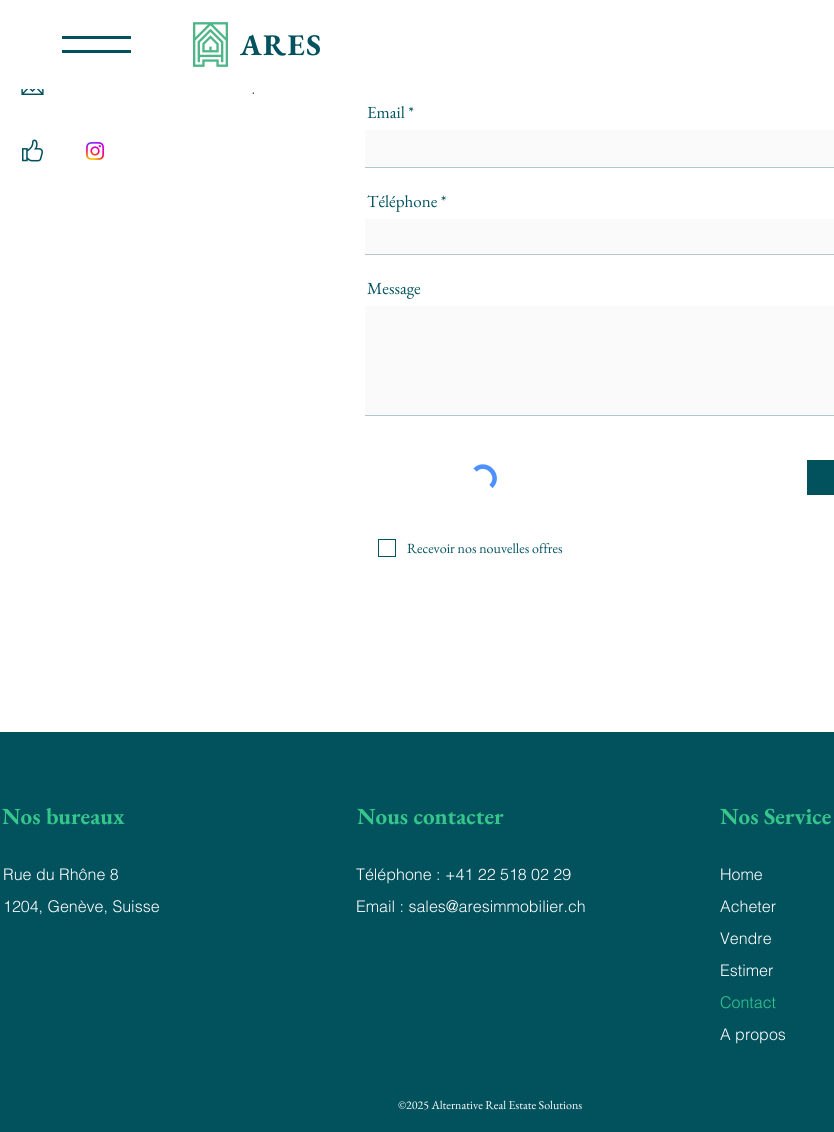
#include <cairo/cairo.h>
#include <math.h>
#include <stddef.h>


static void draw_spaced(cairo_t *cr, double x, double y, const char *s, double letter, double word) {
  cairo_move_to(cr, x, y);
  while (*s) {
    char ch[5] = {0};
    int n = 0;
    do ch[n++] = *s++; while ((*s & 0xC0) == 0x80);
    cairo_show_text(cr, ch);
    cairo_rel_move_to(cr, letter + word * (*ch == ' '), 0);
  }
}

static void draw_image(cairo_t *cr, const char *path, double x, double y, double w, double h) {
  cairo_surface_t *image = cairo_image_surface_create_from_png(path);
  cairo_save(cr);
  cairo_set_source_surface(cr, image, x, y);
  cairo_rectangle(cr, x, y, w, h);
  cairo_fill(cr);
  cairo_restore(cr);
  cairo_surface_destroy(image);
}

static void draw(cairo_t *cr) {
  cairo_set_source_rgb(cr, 1, 1, 1);
  cairo_paint(cr);
  cairo_set_source_rgb(cr, 2 / 255.0, 82 / 255.0, 94 / 255.0);
  cairo_rectangle(cr, 62, 36, 69, 3);
  cairo_fill(cr);
  cairo_rectangle(cr, 62, 50, 69, 3);
  cairo_fill(cr);
  draw_image(cr, "images/1.png", 193, 22, 35, 45);
  draw_image(cr, "images/2.png", 21, 89, 23, 6);
  draw_image(cr, "images/3.png", 22, 139, 21, 23);
  draw_image(cr, "images/4.png", 85, 141, 20, 20);
  cairo_set_source_rgb(cr, 250 / 255.0, 250 / 255.0, 250 / 255.0);
  cairo_rectangle(cr, 365, 130, 469, 37);
  cairo_fill(cr);
  cairo_set_source_rgb(cr, 176 / 255.0, 200 / 255.0, 203 / 255.0);
  cairo_rectangle(cr, 365, 167, 469, 1);
  cairo_fill(cr);
  cairo_set_source_rgb(cr, 250 / 255.0, 250 / 255.0, 250 / 255.0);
  cairo_rectangle(cr, 365, 219, 469, 35);
  cairo_fill(cr);
  cairo_set_source_rgb(cr, 176 / 255.0, 200 / 255.0, 203 / 255.0);
  cairo_rectangle(cr, 365, 254, 469, 1);
  cairo_fill(cr);
  cairo_set_source_rgb(cr, 250 / 255.0, 250 / 255.0, 250 / 255.0);
  cairo_rectangle(cr, 365, 306, 469, 109);
  cairo_fill(cr);
  cairo_set_source_rgb(cr, 176 / 255.0, 200 / 255.0, 203 / 255.0);
  cairo_rectangle(cr, 365, 415, 469, 1);
  cairo_fill(cr);
  cairo_new_path(cr);
  cairo_move_to(cr, 475, 470);
  cairo_curve_to(cr, 485.5, 459.5, 502, 475.5, 491, 486.5);
  cairo_set_source_rgb(cr, 77 / 255.0, 144 / 255.0, 254 / 255.0);
  cairo_set_line_width(cr, 4.6);
  cairo_stroke(cr);
  cairo_set_source_rgb(cr, 2 / 255.0, 82 / 255.0, 94 / 255.0);
  cairo_rectangle(cr, 807, 460, 27, 35);
  cairo_fill(cr);
  cairo_rectangle(cr, 378.5, 539.5, 17, 17);
  cairo_set_line_width(cr, 1);
  cairo_stroke(cr);
  cairo_rectangle(cr, 0, 732, 834, 348);
  cairo_fill(cr);
  cairo_rectangle(cr, 0, 1080, 834, 52);
  cairo_fill(cr);
  cairo_select_font_face(cr, "EB Garamond", CAIRO_FONT_SLANT_NORMAL, CAIRO_FONT_WEIGHT_BOLD);
  cairo_set_font_size(cr, 30);
  draw_spaced(cr, 240, 55, "ARES", 1.5, 0);
  cairo_select_font_face(cr, "helvetica Light", CAIRO_FONT_SLANT_NORMAL, CAIRO_FONT_WEIGHT_NORMAL);
  cairo_set_font_size(cr, 17);
  cairo_set_source_rgb(cr, 48 / 255.0, 84 / 255.0, 84 / 255.0);
  cairo_move_to(cr, 251, 94);
  cairo_show_text(cr, ".");
  cairo_select_font_face(cr, "EB Garamond", CAIRO_FONT_SLANT_NORMAL, CAIRO_FONT_WEIGHT_NORMAL);
  cairo_set_source_rgb(cr, 2 / 255.0, 82 / 255.0, 94 / 255.0);
  cairo_move_to(cr, 367, 118);
  cairo_show_text(cr, "Email *");
  cairo_move_to(cr, 367, 207);
  cairo_show_text(cr, "Téléphone *");
  cairo_move_to(cr, 367, 294);
  cairo_show_text(cr, "Message");
  cairo_set_font_size(cr, 14);
  cairo_move_to(cr, 407, 553);
  cairo_show_text(cr, "Recevoir nos nouvelles offres");
  cairo_select_font_face(cr, "EB Garamond", CAIRO_FONT_SLANT_NORMAL, CAIRO_FONT_WEIGHT_BOLD);
  cairo_set_font_size(cr, 23);
  cairo_set_source_rgb(cr, 53 / 255.0, 198 / 255.0, 139 / 255.0);
  cairo_move_to(cr, 2, 824);
  cairo_show_text(cr, "Nos bureaux");
  cairo_select_font_face(cr, "helvetica Light", CAIRO_FONT_SLANT_NORMAL, CAIRO_FONT_WEIGHT_NORMAL);
  cairo_set_font_size(cr, 16);
  cairo_set_source_rgb(cr, 1, 1, 1);
  cairo_move_to(cr, 3, 880);
  cairo_show_text(cr, "Rue du Rhône 8");
  cairo_move_to(cr, 3, 912);
  cairo_show_text(cr, "1204, Genève, Suisse");
  cairo_select_font_face(cr, "EB Garamond", CAIRO_FONT_SLANT_NORMAL, CAIRO_FONT_WEIGHT_BOLD);
  cairo_set_font_size(cr, 23);
  cairo_set_source_rgb(cr, 53 / 255.0, 198 / 255.0, 139 / 255.0);
  cairo_move_to(cr, 357, 824);
  cairo_show_text(cr, "Nous contacter");
  cairo_select_font_face(cr, "helvetica Light", CAIRO_FONT_SLANT_NORMAL, CAIRO_FONT_WEIGHT_NORMAL);
  cairo_set_font_size(cr, 16);
  cairo_set_source_rgb(cr, 1, 1, 1);
  cairo_move_to(cr, 356, 880);
  cairo_show_text(cr, "Téléphone : +41 22 518 02 29");
  cairo_move_to(cr, 356, 912);
  cairo_show_text(cr, "Email : sales@aresimmobilier.ch");
  cairo_select_font_face(cr, "EB Garamond", CAIRO_FONT_SLANT_NORMAL, CAIRO_FONT_WEIGHT_BOLD);
  cairo_set_font_size(cr, 23);
  cairo_set_source_rgb(cr, 53 / 255.0, 198 / 255.0, 139 / 255.0);
  cairo_move_to(cr, 720, 824);
  cairo_show_text(cr, "Nos Service");
  cairo_select_font_face(cr, "helvetica Light", CAIRO_FONT_SLANT_NORMAL, CAIRO_FONT_WEIGHT_NORMAL);
  cairo_set_font_size(cr, 16);
  cairo_set_source_rgb(cr, 1, 1, 1);
  cairo_move_to(cr, 720, 880);
  cairo_show_text(cr, "Home");
  cairo_move_to(cr, 720, 912);
  cairo_show_text(cr, "Acheter");
  cairo_move_to(cr, 720, 944);
  cairo_show_text(cr, "Vendre");
  cairo_move_to(cr, 720, 976);
  cairo_show_text(cr, "Estimer");
  cairo_set_source_rgb(cr, 53 / 255.0, 198 / 255.0, 139 / 255.0);
  cairo_move_to(cr, 720, 1008);
  cairo_show_text(cr, "Contact");
  cairo_set_source_rgb(cr, 1, 1, 1);
  cairo_move_to(cr, 720, 1040);
  cairo_show_text(cr, "A propos");
  cairo_select_font_face(cr, "EB Garamond", CAIRO_FONT_SLANT_NORMAL, CAIRO_FONT_WEIGHT_NORMAL);
  cairo_set_font_size(cr, 12);
  cairo_move_to(cr, 398, 1109);
  cairo_show_text(cr, "©2025 Alternative Real Estate Solutions");
}

int main(void) {
  cairo_surface_t *surface = cairo_image_surface_create(CAIRO_FORMAT_RGB24, 834, 1132);
  cairo_t *cr = cairo_create(surface);
  cairo_font_options_t *options = cairo_font_options_create();
  cairo_font_options_set_hint_metrics(options, CAIRO_HINT_METRICS_OFF);
  cairo_font_options_set_hint_style(options, CAIRO_HINT_STYLE_NONE);
  cairo_set_font_options(cr, options);
  cairo_set_miter_limit(cr, 4);
  draw(cr);
  cairo_surface_write_to_png(surface, "out.png");
  cairo_font_options_destroy(options);
  cairo_destroy(cr);
  cairo_surface_destroy(surface);
  return 0;
}
